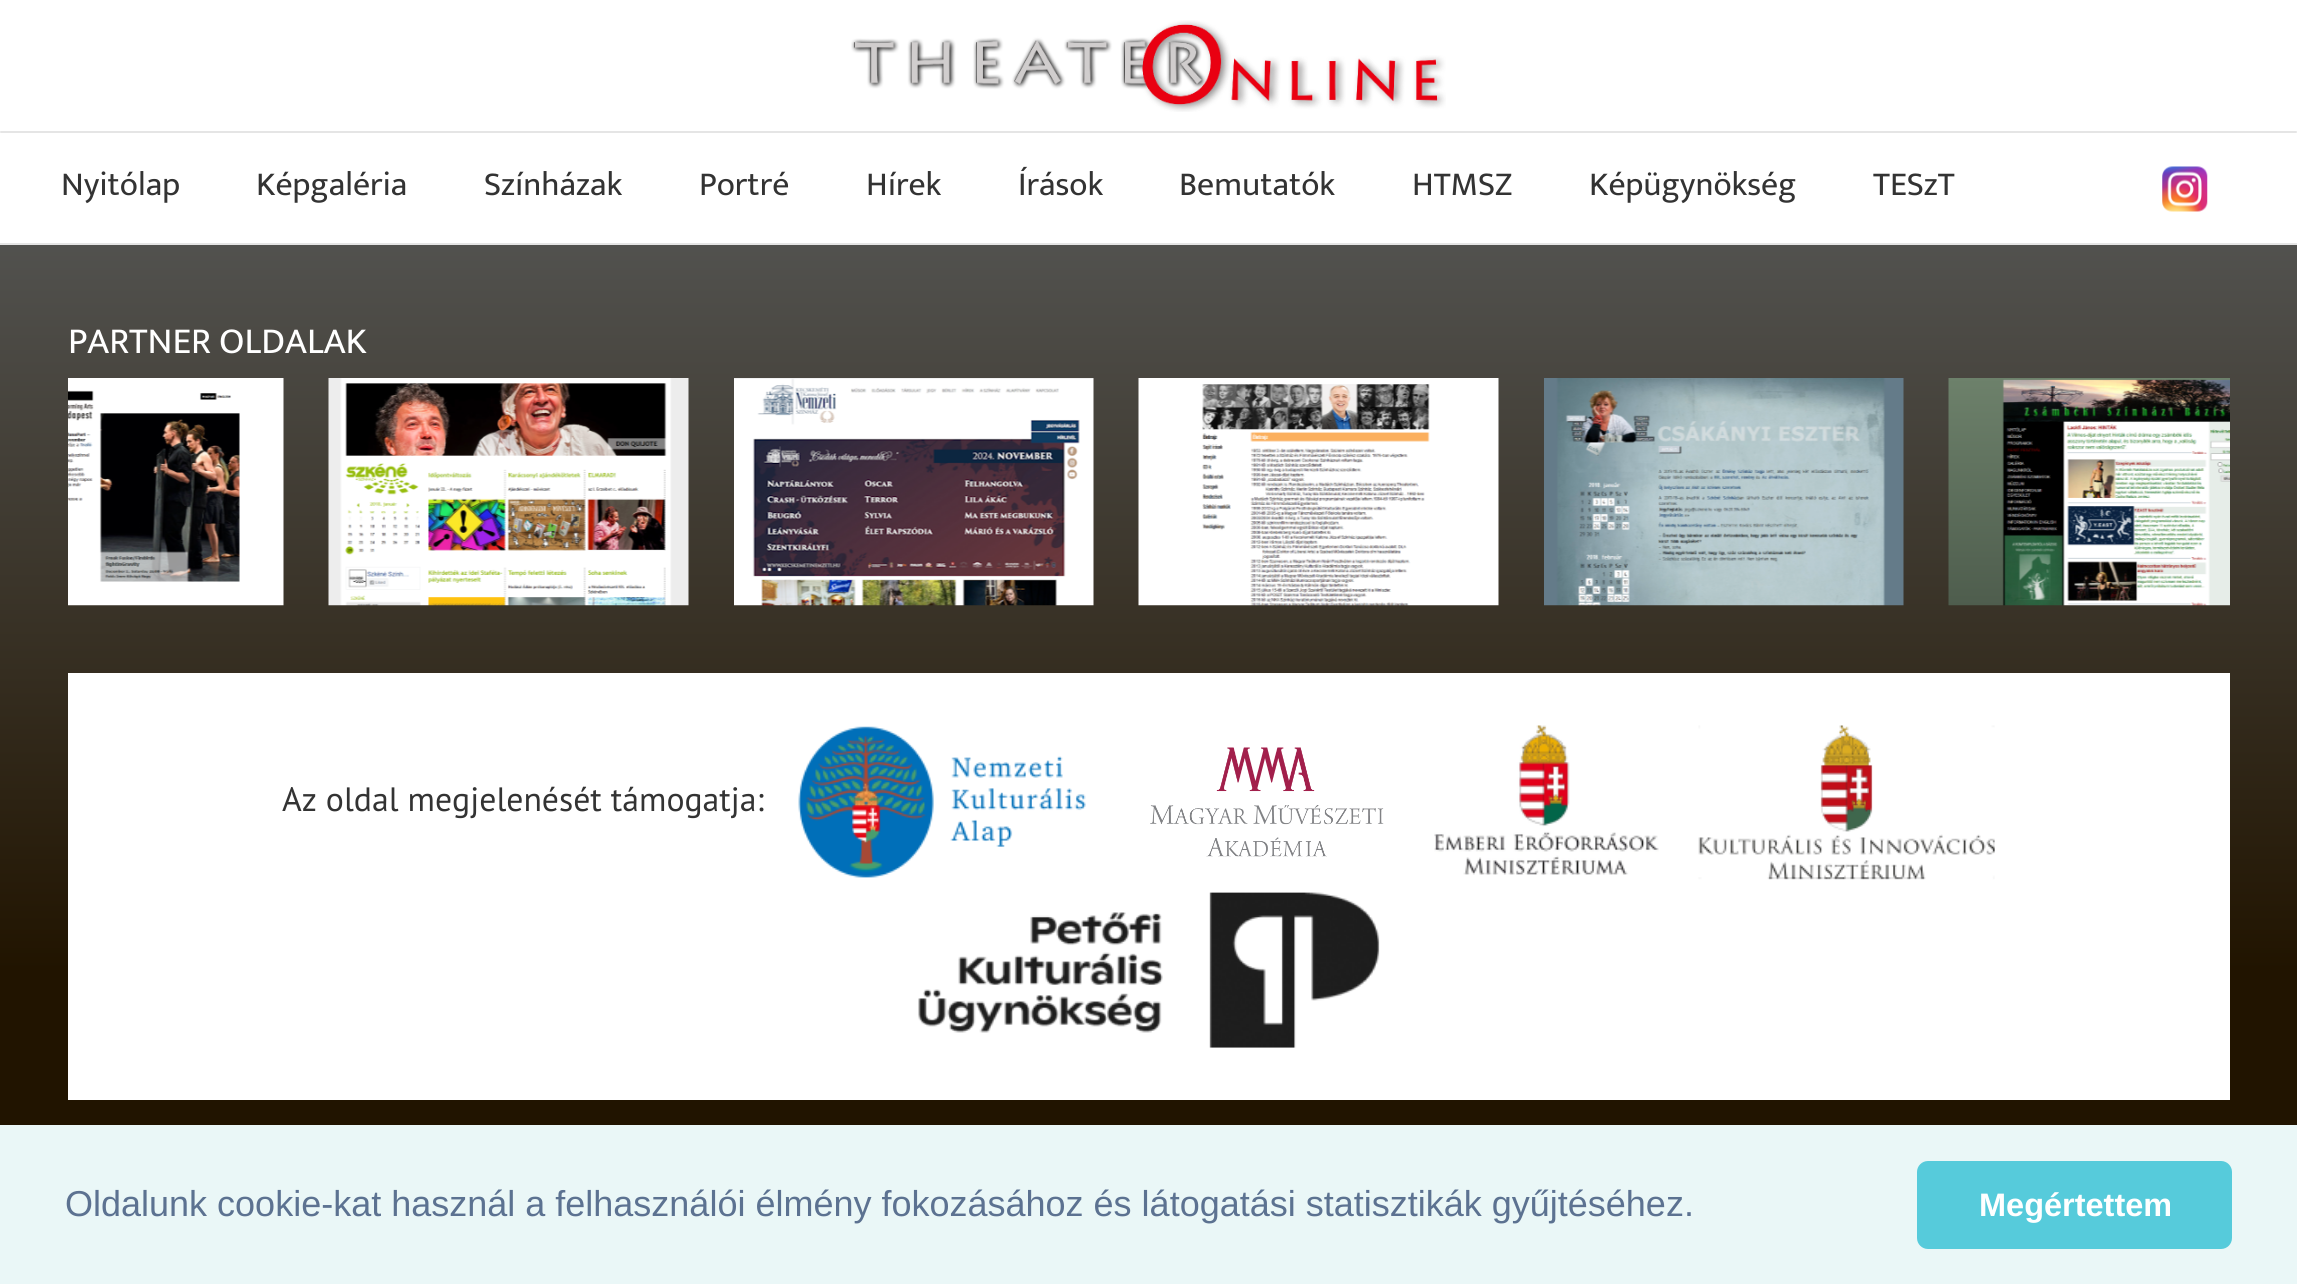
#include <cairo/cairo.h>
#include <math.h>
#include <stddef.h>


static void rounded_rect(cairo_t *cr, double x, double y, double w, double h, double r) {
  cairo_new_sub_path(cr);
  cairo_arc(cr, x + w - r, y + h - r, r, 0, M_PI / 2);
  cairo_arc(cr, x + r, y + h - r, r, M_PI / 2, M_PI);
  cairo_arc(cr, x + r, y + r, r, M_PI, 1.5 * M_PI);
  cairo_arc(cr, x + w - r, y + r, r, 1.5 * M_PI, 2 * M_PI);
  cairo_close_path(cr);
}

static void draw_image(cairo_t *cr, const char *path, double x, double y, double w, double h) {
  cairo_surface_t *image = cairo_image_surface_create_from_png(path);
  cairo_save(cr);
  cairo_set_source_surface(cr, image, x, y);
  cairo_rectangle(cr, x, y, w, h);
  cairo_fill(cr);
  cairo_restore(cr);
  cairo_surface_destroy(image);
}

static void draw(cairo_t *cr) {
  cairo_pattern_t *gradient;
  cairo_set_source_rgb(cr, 1, 1, 1);
  cairo_paint(cr);
  cairo_set_source_rgb(cr, 229 / 255.0, 229 / 255.0, 229 / 255.0);
  cairo_rectangle(cr, 0, 243, 2297, 2);
  cairo_fill(cr);
  rounded_rect(cr, 0, 131, 2297, 2, 1);
  cairo_fill(cr);
  draw_image(cr, "images/1.png", 851, 20, 595, 92);
  draw_image(cr, "images/2.png", 2162, 166, 46, 46);
  gradient = cairo_pattern_create_linear(1149, 238, 1149, 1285);
  cairo_pattern_add_color_stop_rgba(gradient, 0, 82 / 255.0, 82 / 255.0, 79 / 255.0, 1);
  cairo_pattern_add_color_stop_rgba(gradient, 0.7, 33 / 255.0, 20 / 255.0, 0, 1);
  cairo_pattern_add_color_stop_rgba(gradient, 1, 33 / 255.0, 20 / 255.0, 0, 1);
  cairo_set_source(cr, gradient);
  cairo_pattern_destroy(gradient);
  cairo_rectangle(cr, 0, 245, 2297, 880);
  cairo_fill(cr);
  draw_image(cr, "images/3.png", 68, 378, 216, 228);
  draw_image(cr, "images/4.png", 328, 378, 361, 228);
  draw_image(cr, "images/5.png", 734, 378, 360, 228);
  draw_image(cr, "images/6.png", 1138, 378, 361, 228);
  draw_image(cr, "images/7.png", 1544, 378, 360, 228);
  draw_image(cr, "images/8.png", 1948, 378, 282, 228);
  cairo_set_source_rgb(cr, 1, 1, 1);
  cairo_rectangle(cr, 68, 673, 2162, 427);
  cairo_fill(cr);
  draw_image(cr, "images/9.png", 798, 726, 288, 152);
  draw_image(cr, "images/10.png", 1150, 747, 234, 110);
  draw_image(cr, "images/11.png", 1434, 725, 225, 150);
  draw_image(cr, "images/12.png", 1698, 725, 297, 155);
  draw_image(cr, "images/13.png", 918, 892, 462, 156);
  cairo_set_source_rgb(cr, 234 / 255.0, 247 / 255.0, 247 / 255.0);
  cairo_rectangle(cr, 0, 1125, 2297, 159);
  cairo_fill(cr);
  cairo_set_source_rgb(cr, 86 / 255.0, 203 / 255.0, 219 / 255.0);
  rounded_rect(cr, 1917, 1161, 315, 88, 11);
  cairo_fill(cr);
  cairo_select_font_face(cr, "Mukta Vaani", CAIRO_FONT_SLANT_NORMAL, CAIRO_FONT_WEIGHT_NORMAL);
  cairo_set_font_size(cr, 33.75);
  cairo_set_source_rgb(cr, 51 / 255.0, 51 / 255.0, 51 / 255.0);
  cairo_move_to(cr, 61, 195);
  cairo_show_text(cr, "Nyitólap");
  cairo_move_to(cr, 256, 195);
  cairo_show_text(cr, "Képgaléria");
  cairo_move_to(cr, 484, 195);
  cairo_show_text(cr, "Színházak");
  cairo_move_to(cr, 699, 195);
  cairo_show_text(cr, "Portré");
  cairo_move_to(cr, 866, 195);
  cairo_show_text(cr, "Hírek");
  cairo_move_to(cr, 1018, 195);
  cairo_show_text(cr, "Írások");
  cairo_move_to(cr, 1179, 195);
  cairo_show_text(cr, "Bemutatók");
  cairo_move_to(cr, 1412, 195);
  cairo_show_text(cr, "HTMSZ");
  cairo_move_to(cr, 1589, 195);
  cairo_show_text(cr, "Képügynökség");
  cairo_move_to(cr, 1873, 195);
  cairo_show_text(cr, "TESzT");
  cairo_set_font_size(cr, 37);
  cairo_set_source_rgb(cr, 1, 1, 1);
  cairo_move_to(cr, 68, 353);
  cairo_show_text(cr, "PARTNER OLDALAK");
  cairo_select_font_face(cr, "PT Sans", CAIRO_FONT_SLANT_NORMAL, CAIRO_FONT_WEIGHT_NORMAL);
  cairo_set_font_size(cr, 33.75);
  cairo_set_source_rgb(cr, 51 / 255.0, 51 / 255.0, 51 / 255.0);
  cairo_move_to(cr, 282, 811);
  cairo_show_text(cr, "Az oldal megjelenését támogatja:");
  cairo_select_font_face(cr, "Liberation Sans", CAIRO_FONT_SLANT_NORMAL, CAIRO_FONT_WEIGHT_NORMAL);
  cairo_set_font_size(cr, 36);
  cairo_set_source_rgb(cr, 92 / 255.0, 114 / 255.0, 145 / 255.0);
  cairo_move_to(cr, 65, 1216);
  cairo_show_text(cr, "Oldalunk cookie-kat használ a felhasználói élmény fokozásához és látogatási statisztikák gyűjtéséhez.");
  cairo_select_font_face(cr, "Liberation Sans", CAIRO_FONT_SLANT_NORMAL, CAIRO_FONT_WEIGHT_BOLD);
  cairo_set_font_size(cr, 32.5);
  cairo_set_source_rgb(cr, 1, 1, 1);
  cairo_move_to(cr, 1979, 1216);
  cairo_show_text(cr, "Megértettem");
}

int main(void) {
  cairo_surface_t *surface = cairo_image_surface_create(CAIRO_FORMAT_RGB24, 2297, 1284);
  cairo_t *cr = cairo_create(surface);
  cairo_font_options_t *options = cairo_font_options_create();
  cairo_font_options_set_hint_metrics(options, CAIRO_HINT_METRICS_OFF);
  cairo_font_options_set_hint_style(options, CAIRO_HINT_STYLE_NONE);
  cairo_set_font_options(cr, options);
  cairo_set_miter_limit(cr, 4);
  draw(cr);
  cairo_surface_write_to_png(surface, "out.png");
  cairo_font_options_destroy(options);
  cairo_destroy(cr);
  cairo_surface_destroy(surface);
  return 0;
}
